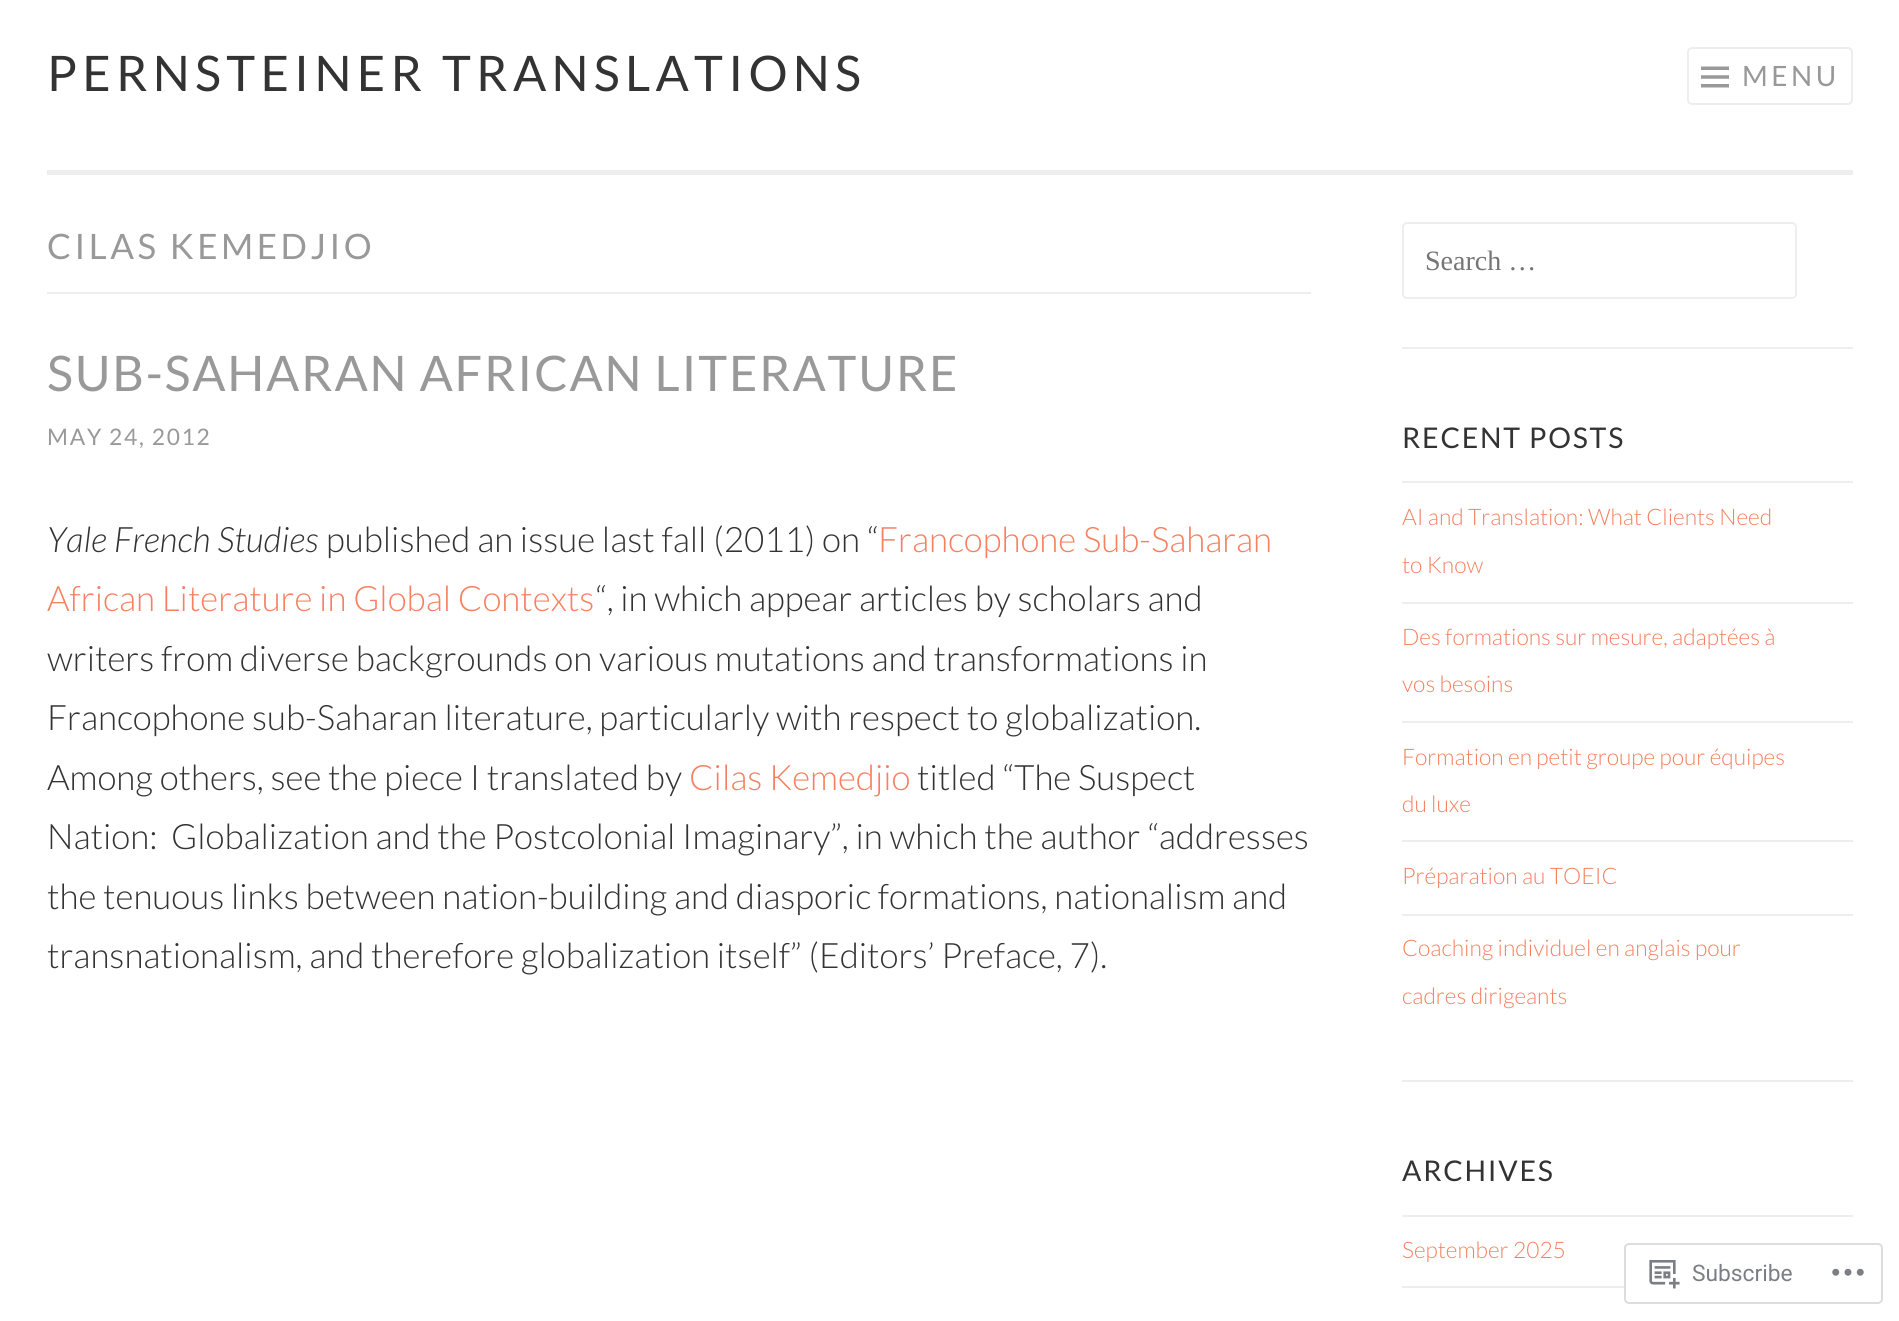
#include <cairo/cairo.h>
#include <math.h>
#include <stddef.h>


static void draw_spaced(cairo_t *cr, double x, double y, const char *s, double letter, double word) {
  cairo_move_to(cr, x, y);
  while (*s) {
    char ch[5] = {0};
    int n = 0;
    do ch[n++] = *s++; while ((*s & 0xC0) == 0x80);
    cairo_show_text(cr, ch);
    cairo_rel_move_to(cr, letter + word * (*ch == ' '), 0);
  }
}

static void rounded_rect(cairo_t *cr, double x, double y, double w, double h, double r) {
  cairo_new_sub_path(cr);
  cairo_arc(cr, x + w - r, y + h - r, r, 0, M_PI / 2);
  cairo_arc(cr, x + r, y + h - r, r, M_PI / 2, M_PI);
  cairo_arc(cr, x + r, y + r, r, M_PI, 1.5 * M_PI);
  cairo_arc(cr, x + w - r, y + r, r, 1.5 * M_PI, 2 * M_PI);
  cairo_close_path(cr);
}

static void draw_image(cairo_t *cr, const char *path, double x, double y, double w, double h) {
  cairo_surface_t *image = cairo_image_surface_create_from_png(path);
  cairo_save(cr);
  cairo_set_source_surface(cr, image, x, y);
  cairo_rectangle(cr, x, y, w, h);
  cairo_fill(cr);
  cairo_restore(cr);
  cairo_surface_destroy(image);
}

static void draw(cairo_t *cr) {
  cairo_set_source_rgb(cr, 1, 1, 1);
  cairo_paint(cr);
  cairo_set_source_rgb(cr, 238 / 255.0, 238 / 255.0, 238 / 255.0);
  cairo_rectangle(cr, 47, 170, 1806, 5);
  cairo_fill(cr);
  rounded_rect(cr, 1688, 48, 164, 56, 4);
  cairo_stroke(cr);
  draw_image(cr, "images/1.png", 1701, 66, 28, 22);
  cairo_rectangle(cr, 47, 292, 1264, 2);
  cairo_fill(cr);
  cairo_rectangle(cr, 1402, 347, 451, 2);
  cairo_fill(cr);
  rounded_rect(cr, 1403, 223, 393, 75, 4);
  cairo_stroke(cr);
  cairo_rectangle(cr, 1402, 1080, 451, 2);
  cairo_fill(cr);
  cairo_rectangle(cr, 1402, 481, 451, 2);
  cairo_fill(cr);
  cairo_rectangle(cr, 1402, 602, 451, 2);
  cairo_fill(cr);
  cairo_rectangle(cr, 1402, 721, 451, 2);
  cairo_fill(cr);
  cairo_rectangle(cr, 1402, 840, 451, 2);
  cairo_fill(cr);
  cairo_rectangle(cr, 1402, 914, 451, 2);
  cairo_fill(cr);
  cairo_rectangle(cr, 1402, 1215, 451, 2);
  cairo_fill(cr);
  cairo_rectangle(cr, 1402, 1286, 451, 2);
  cairo_fill(cr);
  cairo_set_source_rgba(cr, 1, 1, 1, 0.98);
  rounded_rect(cr, 1625, 1244, 257, 59, 4);
  cairo_fill_preserve(cr);
  cairo_set_source_rgb(cr, 221 / 255.0, 221 / 255.0, 223 / 255.0);
  cairo_stroke(cr);
  draw_image(cr, "images/2.png", 1649, 1260, 31, 29);
  draw_image(cr, "images/3.png", 1832, 1268, 32, 8);
  cairo_select_font_face(cr, "Lato", CAIRO_FONT_SLANT_NORMAL, CAIRO_FONT_WEIGHT_NORMAL);
  cairo_set_font_size(cr, 49);
  cairo_set_source_rgb(cr, 51 / 255.0, 51 / 255.0, 51 / 255.0);
  draw_spaced(cr, 47, 91, "PERNSTEINER TRANSLATIONS", 5.25, 0);
  cairo_set_font_size(cr, 28);
  cairo_set_source_rgb(cr, 153 / 255.0, 153 / 255.0, 153 / 255.0);
  draw_spaced(cr, 1742, 86, "MENU", 3.5, 0);
  cairo_set_font_size(cr, 35);
  draw_spaced(cr, 47, 259, "CILAS KEMEDJIO", 3.5, 0);
  cairo_set_font_size(cr, 49);
  draw_spaced(cr, 47, 391, "SUB-SAHARAN AFRICAN LITERATURE", 1.75, 0);
  cairo_set_font_size(cr, 22.75);
  draw_spaced(cr, 47, 445, "MAY 24, 2012", 1.75, 0);
  cairo_select_font_face(cr, "Lato Light", CAIRO_FONT_SLANT_ITALIC, CAIRO_FONT_WEIGHT_NORMAL);
  cairo_set_font_size(cr, 35);
  cairo_set_source_rgb(cr, 51 / 255.0, 51 / 255.0, 51 / 255.0);
  cairo_move_to(cr, 47, 552);
  cairo_show_text(cr, "Yale French Studies");
  cairo_select_font_face(cr, "Lato Light", CAIRO_FONT_SLANT_NORMAL, CAIRO_FONT_WEIGHT_NORMAL);
  cairo_move_to(cr, 326, 552);
  cairo_show_text(cr, "published an issue last fall (2011) on “");
  cairo_set_source_rgb(cr, 246 / 255.0, 128 / 255.0, 96 / 255.0);
  cairo_move_to(cr, 878, 552);
  cairo_show_text(cr, "Francophone Sub-Saharan");
  cairo_move_to(cr, 47, 611);
  cairo_show_text(cr, "African Literature in Global Contexts");
  cairo_set_source_rgb(cr, 51 / 255.0, 51 / 255.0, 51 / 255.0);
  cairo_move_to(cr, 595, 611);
  cairo_show_text(cr, "“, in which appear articles by scholars and");
  cairo_move_to(cr, 47, 671);
  cairo_show_text(cr, "writers from diverse backgrounds on various mutations and transformations in");
  cairo_move_to(cr, 47, 730);
  cairo_show_text(cr, "Francophone sub-Saharan literature, particularly with respect to globalization.");
  cairo_move_to(cr, 47, 790);
  cairo_show_text(cr, "Among others, see the piece I translated by");
  cairo_set_source_rgb(cr, 246 / 255.0, 128 / 255.0, 96 / 255.0);
  cairo_move_to(cr, 689, 790);
  cairo_show_text(cr, "Cilas Kemedjio");
  cairo_set_source_rgb(cr, 51 / 255.0, 51 / 255.0, 51 / 255.0);
  cairo_move_to(cr, 917, 790);
  cairo_show_text(cr, "titled “The Suspect");
  cairo_move_to(cr, 47, 849);
  cairo_show_text(cr, "Nation:  Globalization and the Postcolonial Imaginary”, in which the author “addresses");
  cairo_move_to(cr, 47, 909);
  cairo_show_text(cr, "the tenuous links between nation-building and diasporic formations, nationalism and");
  cairo_move_to(cr, 47, 968);
  cairo_show_text(cr, "transnationalism, and therefore globalization itself” (Editors’ Preface, 7).");
  cairo_select_font_face(cr, "Liberation Serif", CAIRO_FONT_SLANT_NORMAL, CAIRO_FONT_WEIGHT_NORMAL);
  cairo_set_font_size(cr, 28);
  cairo_set_source_rgb(cr, 117 / 255.0, 117 / 255.0, 117 / 255.0);
  cairo_move_to(cr, 1425, 270);
  cairo_show_text(cr, "Search …");
  cairo_select_font_face(cr, "Lato", CAIRO_FONT_SLANT_NORMAL, CAIRO_FONT_WEIGHT_NORMAL);
  cairo_set_font_size(cr, 28.5);
  cairo_set_source_rgb(cr, 51 / 255.0, 51 / 255.0, 51 / 255.0);
  draw_spaced(cr, 1402, 448, "RECENT POSTS", 1.75, 0);
  cairo_select_font_face(cr, "Lato Light", CAIRO_FONT_SLANT_NORMAL, CAIRO_FONT_WEIGHT_NORMAL);
  cairo_set_font_size(cr, 22.75);
  cairo_set_source_rgb(cr, 246 / 255.0, 128 / 255.0, 96 / 255.0);
  cairo_move_to(cr, 1402, 525);
  cairo_show_text(cr, "AI and Translation: What Clients Need");
  cairo_move_to(cr, 1402, 573);
  cairo_show_text(cr, "to Know");
  cairo_move_to(cr, 1402, 645);
  cairo_show_text(cr, "Des formations sur mesure, adaptées à");
  cairo_move_to(cr, 1402, 692);
  cairo_show_text(cr, "vos besoins");
  cairo_move_to(cr, 1402, 765);
  cairo_show_text(cr, "Formation en petit groupe pour équipes");
  cairo_move_to(cr, 1402, 812);
  cairo_show_text(cr, "du luxe");
  cairo_move_to(cr, 1402, 884);
  cairo_show_text(cr, "Préparation au TOEIC");
  cairo_move_to(cr, 1402, 956);
  cairo_show_text(cr, "Coaching individuel en anglais pour");
  cairo_move_to(cr, 1402, 1004);
  cairo_show_text(cr, "cadres dirigeants");
  cairo_select_font_face(cr, "Lato", CAIRO_FONT_SLANT_NORMAL, CAIRO_FONT_WEIGHT_NORMAL);
  cairo_set_font_size(cr, 28.5);
  cairo_set_source_rgb(cr, 51 / 255.0, 51 / 255.0, 51 / 255.0);
  draw_spaced(cr, 1402, 1181, "ARCHIVES", 1.75, 0);
  cairo_select_font_face(cr, "Lato Light", CAIRO_FONT_SLANT_NORMAL, CAIRO_FONT_WEIGHT_NORMAL);
  cairo_set_font_size(cr, 22.75);
  cairo_set_source_rgb(cr, 246 / 255.0, 128 / 255.0, 96 / 255.0);
  cairo_move_to(cr, 1402, 1258);
  cairo_show_text(cr, "September 2025");
  cairo_select_font_face(cr, "Roboto", CAIRO_FONT_SLANT_NORMAL, CAIRO_FONT_WEIGHT_NORMAL);
  cairo_set_source_rgb(cr, 123 / 255.0, 127 / 255.0, 133 / 255.0);
  cairo_move_to(cr, 1692, 1281);
  cairo_show_text(cr, "Subscribe");
}

int main(void) {
  cairo_surface_t *surface = cairo_image_surface_create(CAIRO_FORMAT_RGB24, 1899, 1321);
  cairo_t *cr = cairo_create(surface);
  cairo_font_options_t *options = cairo_font_options_create();
  cairo_font_options_set_hint_metrics(options, CAIRO_HINT_METRICS_OFF);
  cairo_font_options_set_hint_style(options, CAIRO_HINT_STYLE_NONE);
  cairo_set_font_options(cr, options);
  cairo_set_miter_limit(cr, 4);
  draw(cr);
  cairo_surface_write_to_png(surface, "out.png");
  cairo_font_options_destroy(options);
  cairo_destroy(cr);
  cairo_surface_destroy(surface);
  return 0;
}
